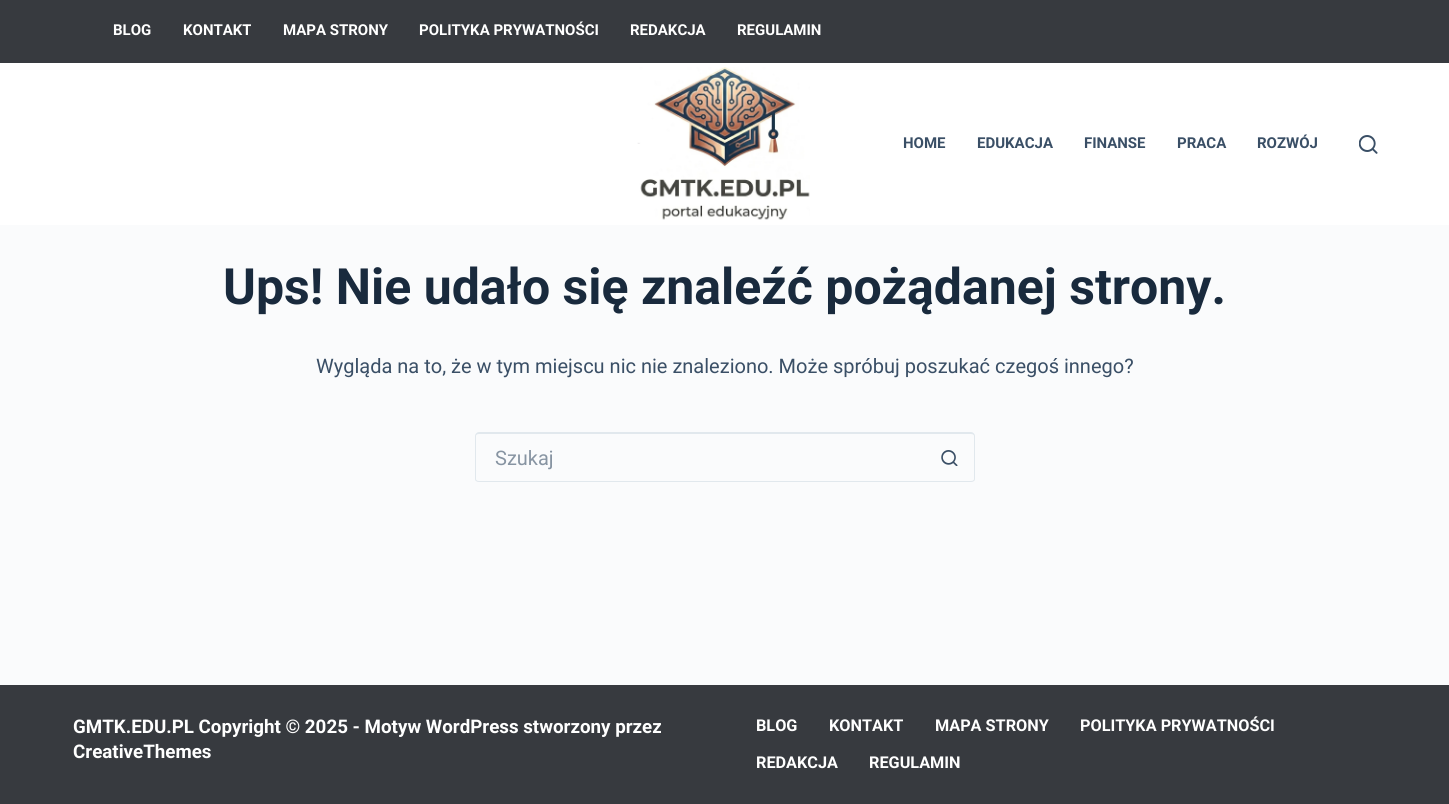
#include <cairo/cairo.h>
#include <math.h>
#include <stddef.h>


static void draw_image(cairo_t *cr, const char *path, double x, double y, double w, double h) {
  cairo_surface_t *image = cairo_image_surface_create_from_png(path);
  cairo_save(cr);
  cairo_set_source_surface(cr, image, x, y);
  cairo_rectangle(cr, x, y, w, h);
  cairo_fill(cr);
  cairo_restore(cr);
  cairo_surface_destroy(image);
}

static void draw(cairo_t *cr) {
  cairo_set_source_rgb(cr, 250 / 255.0, 251 / 255.0, 252 / 255.0);
  cairo_paint(cr);
  cairo_set_source_rgb(cr, 55 / 255.0, 58 / 255.0, 63 / 255.0);
  cairo_rectangle(cr, 0, 0, 1449, 63);
  cairo_fill(cr);
  cairo_set_source_rgb(cr, 1, 1, 1);
  cairo_rectangle(cr, 0, 63, 1449, 162);
  cairo_fill(cr);
  draw_image(cr, "images/1.png", 637, 67, 173, 153);
  draw_image(cr, "images/2.png", 1359, 135, 19, 19);
  cairo_set_source_rgb(cr, 225 / 255.0, 232 / 255.0, 237 / 255.0);
  cairo_set_fill_rule(cr, CAIRO_FILL_RULE_EVEN_ODD);
  cairo_new_path(cr);
  cairo_move_to(cr, 479, 432);
  cairo_line_to(cr, 925, 432);
  cairo_line_to(cr, 925, 482);
  cairo_line_to(cr, 479, 482);
  cairo_curve_to(cr, 477, 482, 475, 481, 475, 479);
  cairo_line_to(cr, 475, 436);
  cairo_curve_to(cr, 475, 434, 477, 432, 479, 432);
  cairo_close_path(cr);
  cairo_move_to(cr, 479, 434);
  cairo_line_to(cr, 925, 434);
  cairo_line_to(cr, 925, 481);
  cairo_line_to(cr, 479, 481);
  cairo_curve_to(cr, 477, 481, 476, 480, 476, 479);
  cairo_line_to(cr, 476, 436);
  cairo_curve_to(cr, 476, 435, 477, 434, 479, 434);
  cairo_close_path(cr);
  cairo_fill(cr);
  cairo_new_path(cr);
  cairo_move_to(cr, 925, 432);
  cairo_line_to(cr, 971, 432);
  cairo_curve_to(cr, 973, 432, 975, 434, 975, 436);
  cairo_line_to(cr, 975, 479);
  cairo_curve_to(cr, 975, 481, 973, 482, 971, 482);
  cairo_line_to(cr, 925, 482);
  cairo_close_path(cr);
  cairo_move_to(cr, 925, 434);
  cairo_line_to(cr, 971, 434);
  cairo_curve_to(cr, 973, 434, 974, 435, 974, 436);
  cairo_line_to(cr, 974, 479);
  cairo_curve_to(cr, 974, 480, 973, 481, 971, 481);
  cairo_line_to(cr, 925, 481);
  cairo_close_path(cr);
  cairo_fill(cr);
  draw_image(cr, "images/3.png", 941, 450, 17, 16);
  cairo_set_source_rgb(cr, 55 / 255.0, 58 / 255.0, 63 / 255.0);
  cairo_rectangle(cr, 0, 685, 1449, 119);
  cairo_fill(cr);
  cairo_select_font_face(cr, "Roboto", CAIRO_FONT_SLANT_NORMAL, CAIRO_FONT_WEIGHT_BOLD);
  cairo_set_font_size(cr, 15);
  cairo_set_source_rgb(cr, 1, 1, 1);
  cairo_move_to(cr, 113, 35);
  cairo_show_text(cr, "BLOG");
  cairo_move_to(cr, 183, 35);
  cairo_show_text(cr, "KONTAKT");
  cairo_move_to(cr, 283, 35);
  cairo_show_text(cr, "MAPA STRONY");
  cairo_move_to(cr, 419, 35);
  cairo_show_text(cr, "POLITYKA PRYWATNOŚCI");
  cairo_move_to(cr, 630, 35);
  cairo_show_text(cr, "REDAKCJA");
  cairo_move_to(cr, 737, 35);
  cairo_show_text(cr, "REGULAMIN");
  cairo_set_source_rgb(cr, 58 / 255.0, 79 / 255.0, 102 / 255.0);
  cairo_move_to(cr, 903, 148);
  cairo_show_text(cr, "HOME");
  cairo_move_to(cr, 977, 148);
  cairo_show_text(cr, "EDUKACJA");
  cairo_move_to(cr, 1084, 148);
  cairo_show_text(cr, "FINANSE");
  cairo_move_to(cr, 1177, 148);
  cairo_show_text(cr, "PRACA");
  cairo_move_to(cr, 1257, 148);
  cairo_show_text(cr, "ROZWÓJ");
  cairo_set_font_size(cr, 50);
  cairo_set_source_rgb(cr, 25 / 255.0, 42 / 255.0, 61 / 255.0);
  cairo_move_to(cr, 223, 304);
  cairo_show_text(cr, "Ups! Nie udało się znaleźć pożądanej strony.");
  cairo_select_font_face(cr, "Roboto", CAIRO_FONT_SLANT_NORMAL, CAIRO_FONT_WEIGHT_NORMAL);
  cairo_set_font_size(cr, 20);
  cairo_set_source_rgb(cr, 58 / 255.0, 79 / 255.0, 102 / 255.0);
  cairo_move_to(cr, 316, 373);
  cairo_show_text(cr, "Wygląda na to, że w tym miejscu nic nie znaleziono. Może spróbuj poszukać czegoś innego?");
  cairo_set_source_rgb(cr, 135 / 255.0, 148 / 255.0, 162 / 255.0);
  cairo_move_to(cr, 495, 465);
  cairo_show_text(cr, "Szukaj");
  cairo_select_font_face(cr, "Roboto", CAIRO_FONT_SLANT_NORMAL, CAIRO_FONT_WEIGHT_BOLD);
  cairo_set_font_size(cr, 18.75);
  cairo_set_source_rgb(cr, 1, 1, 1);
  cairo_move_to(cr, 73, 733);
  cairo_show_text(cr, "GMTK.EDU.PL Copyright © 2025 - Motyw WordPress stworzony przez");
  cairo_move_to(cr, 73, 758);
  cairo_show_text(cr, "CreativeThemes");
  cairo_set_font_size(cr, 16.25);
  cairo_move_to(cr, 756, 731);
  cairo_show_text(cr, "BLOG");
  cairo_move_to(cr, 829, 731);
  cairo_show_text(cr, "KONTAKT");
  cairo_move_to(cr, 935, 731);
  cairo_show_text(cr, "MAPA STRONY");
  cairo_move_to(cr, 1080, 731);
  cairo_show_text(cr, "POLITYKA PRYWATNOŚCI");
  cairo_move_to(cr, 756, 768);
  cairo_show_text(cr, "REDAKCJA");
  cairo_move_to(cr, 869, 768);
  cairo_show_text(cr, "REGULAMIN");
}

int main(void) {
  cairo_surface_t *surface = cairo_image_surface_create(CAIRO_FORMAT_RGB24, 1449, 804);
  cairo_t *cr = cairo_create(surface);
  cairo_font_options_t *options = cairo_font_options_create();
  cairo_font_options_set_hint_metrics(options, CAIRO_HINT_METRICS_OFF);
  cairo_font_options_set_hint_style(options, CAIRO_HINT_STYLE_NONE);
  cairo_set_font_options(cr, options);
  cairo_set_miter_limit(cr, 4);
  draw(cr);
  cairo_surface_write_to_png(surface, "out.png");
  cairo_font_options_destroy(options);
  cairo_destroy(cr);
  cairo_surface_destroy(surface);
  return 0;
}
